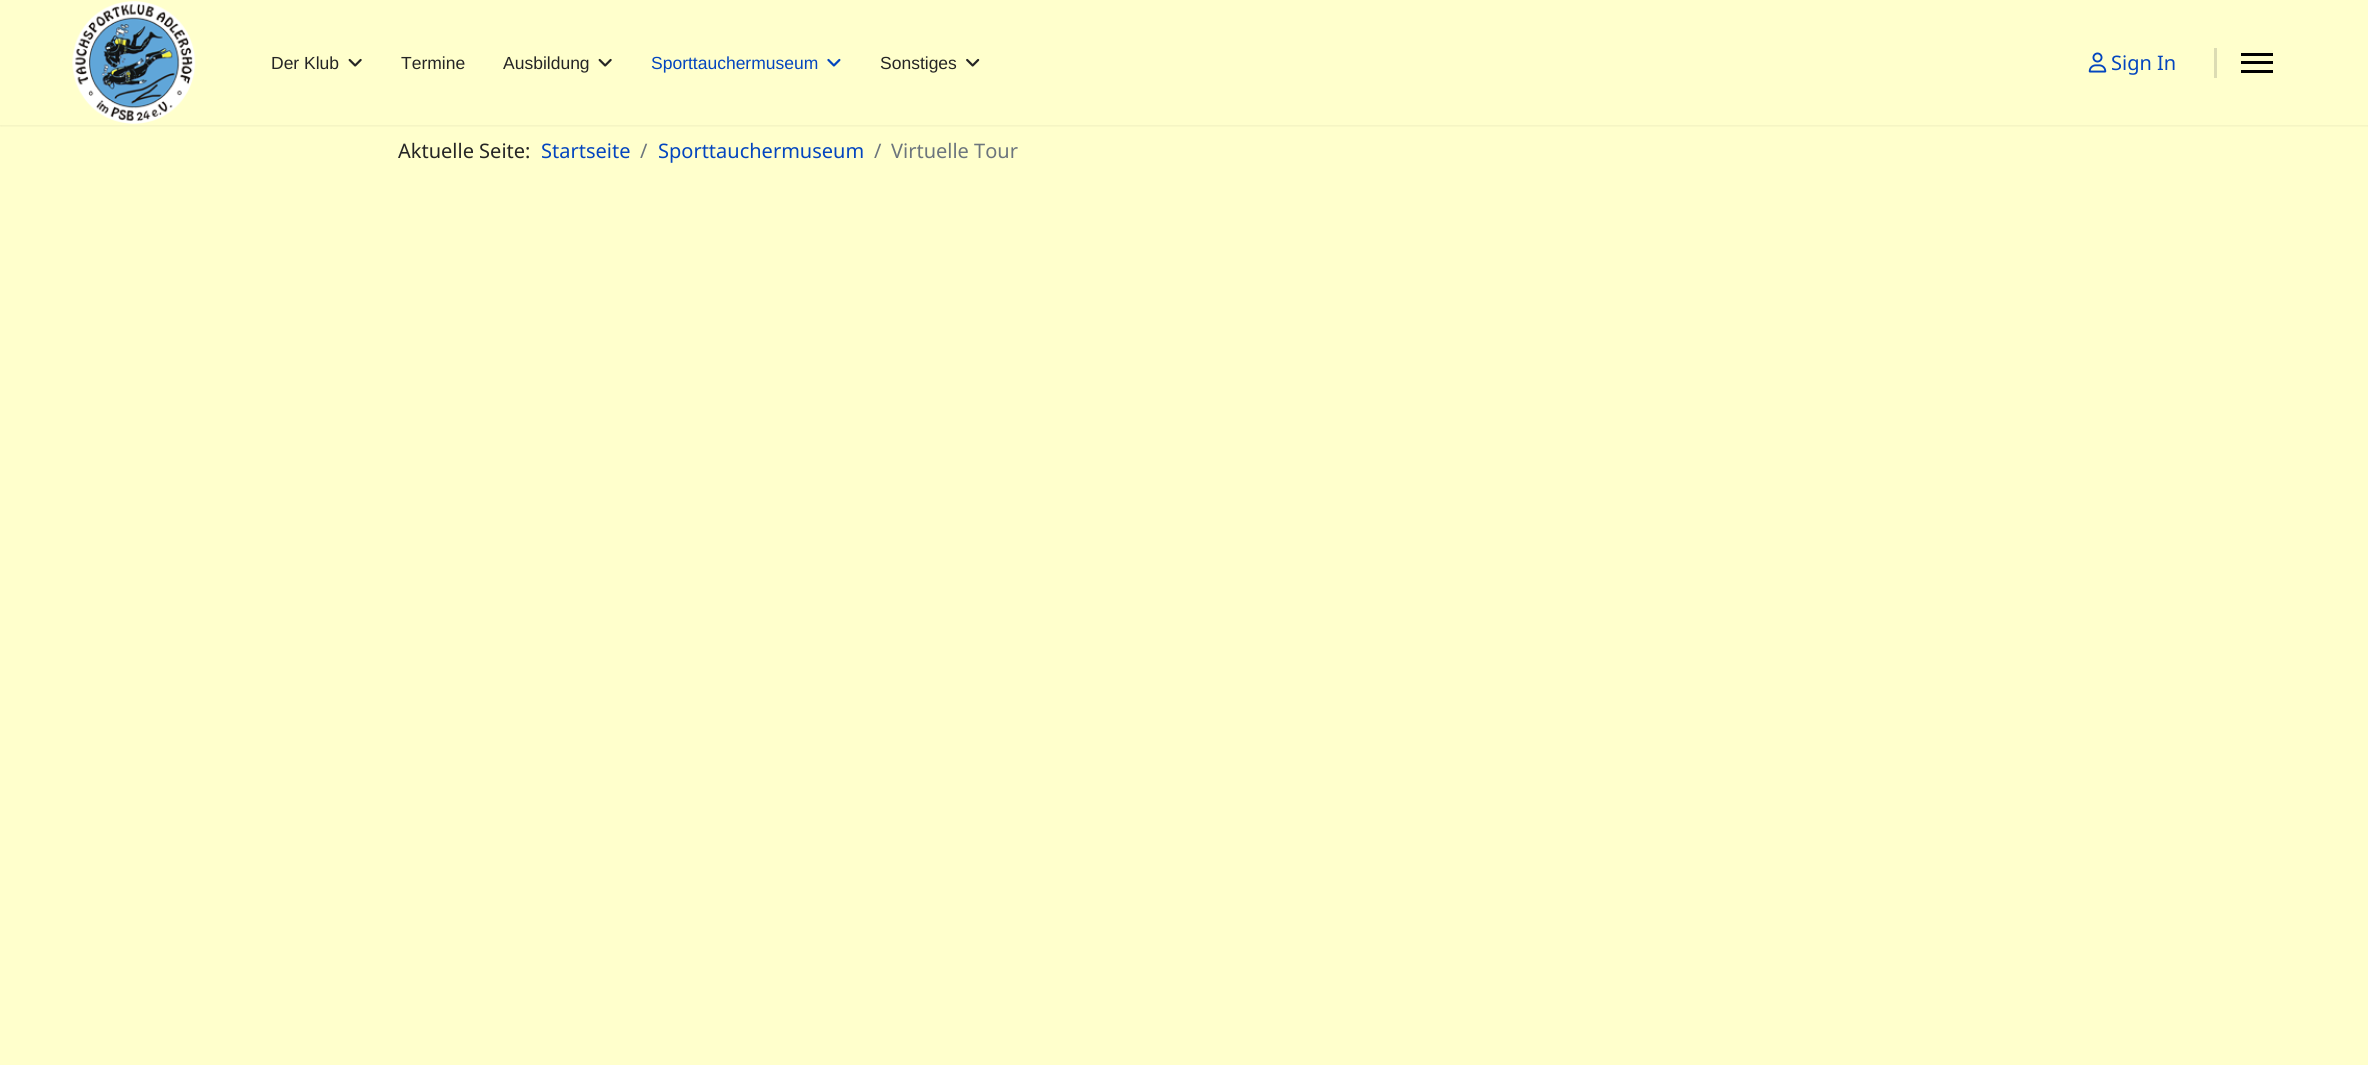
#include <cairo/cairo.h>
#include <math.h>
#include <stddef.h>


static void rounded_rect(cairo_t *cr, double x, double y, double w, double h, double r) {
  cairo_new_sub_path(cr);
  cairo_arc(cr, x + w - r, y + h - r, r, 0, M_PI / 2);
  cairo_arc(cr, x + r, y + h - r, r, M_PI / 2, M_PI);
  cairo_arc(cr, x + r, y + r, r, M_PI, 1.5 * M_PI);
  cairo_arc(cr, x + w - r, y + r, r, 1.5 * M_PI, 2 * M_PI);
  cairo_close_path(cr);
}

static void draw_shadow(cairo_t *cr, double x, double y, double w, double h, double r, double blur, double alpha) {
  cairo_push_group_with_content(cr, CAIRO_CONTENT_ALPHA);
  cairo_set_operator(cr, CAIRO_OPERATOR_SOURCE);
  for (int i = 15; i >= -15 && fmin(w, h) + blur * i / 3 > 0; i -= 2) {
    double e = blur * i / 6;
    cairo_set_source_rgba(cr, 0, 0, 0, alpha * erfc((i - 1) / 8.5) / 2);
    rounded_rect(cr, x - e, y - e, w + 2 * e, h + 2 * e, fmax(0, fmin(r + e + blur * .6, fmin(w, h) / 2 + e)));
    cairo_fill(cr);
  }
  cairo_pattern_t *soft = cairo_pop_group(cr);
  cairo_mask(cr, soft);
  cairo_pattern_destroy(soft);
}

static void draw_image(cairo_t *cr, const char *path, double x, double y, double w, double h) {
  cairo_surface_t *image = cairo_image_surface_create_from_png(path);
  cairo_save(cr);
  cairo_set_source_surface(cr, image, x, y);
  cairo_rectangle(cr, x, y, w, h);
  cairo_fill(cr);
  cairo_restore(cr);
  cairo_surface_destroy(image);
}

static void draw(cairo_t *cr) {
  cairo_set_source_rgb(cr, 1, 1, 204 / 255.0);
  cairo_paint(cr);
  cairo_save(cr);
  cairo_rectangle(cr, 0, 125, 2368, 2);
  cairo_clip(cr);
  cairo_set_source_rgb(cr, 0, 0, 0);
  draw_shadow(cr, 0, 0, 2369, 125, 0, 2.5, 0.1);
  cairo_restore(cr);
  draw_image(cr, "images/1.png", 72, 1, 124, 123);
  draw_image(cr, "images/2.png", 348, 58, 14, 9);
  draw_image(cr, "images/2.png", 598, 58, 14, 9);
  draw_image(cr, "images/3.png", 827, 58, 14, 9);
  draw_image(cr, "images/4.png", 966, 58, 14, 9);
  cairo_set_source_rgb(cr, 220 / 255.0, 220 / 255.0, 179 / 255.0);
  cairo_rectangle(cr, 2214, 48, 3, 30);
  cairo_fill(cr);
  draw_image(cr, "images/5.png", 2088, 52, 19, 21);
  cairo_set_source_rgb(cr, 0, 0, 0);
  cairo_rectangle(cr, 2241, 53, 32, 3);
  cairo_fill(cr);
  cairo_rectangle(cr, 2241, 61, 32, 3);
  cairo_fill(cr);
  cairo_rectangle(cr, 2241, 70, 32, 3);
  cairo_fill(cr);
  cairo_select_font_face(cr, "Liberation Sans", CAIRO_FONT_SLANT_NORMAL, CAIRO_FONT_WEIGHT_NORMAL);
  cairo_set_font_size(cr, 17.5);
  cairo_set_source_rgb(cr, 37 / 255.0, 37 / 255.0, 37 / 255.0);
  cairo_move_to(cr, 271, 69);
  cairo_show_text(cr, "Der Klub");
  cairo_move_to(cr, 401, 69);
  cairo_show_text(cr, "Termine");
  cairo_move_to(cr, 503, 69);
  cairo_show_text(cr, "Ausbildung");
  cairo_set_source_rgb(cr, 3 / 255.0, 69 / 255.0, 191 / 255.0);
  cairo_move_to(cr, 651, 69);
  cairo_show_text(cr, "Sporttauchermuseum");
  cairo_set_source_rgb(cr, 37 / 255.0, 37 / 255.0, 37 / 255.0);
  cairo_move_to(cr, 880, 69);
  cairo_show_text(cr, "Sonstiges");
  cairo_select_font_face(cr, "Noto Sans", CAIRO_FONT_SLANT_NORMAL, CAIRO_FONT_WEIGHT_NORMAL);
  cairo_set_font_size(cr, 20);
  cairo_set_source_rgb(cr, 3 / 255.0, 69 / 255.0, 191 / 255.0);
  cairo_move_to(cr, 2111, 70);
  cairo_show_text(cr, "Sign In");
  cairo_set_source_rgb(cr, 37 / 255.0, 37 / 255.0, 37 / 255.0);
  cairo_move_to(cr, 398, 158);
  cairo_show_text(cr, "Aktuelle Seite:");
  cairo_set_source_rgb(cr, 3 / 255.0, 69 / 255.0, 191 / 255.0);
  cairo_move_to(cr, 541, 158);
  cairo_show_text(cr, "Startseite");
  cairo_set_source_rgb(cr, 108 / 255.0, 117 / 255.0, 125 / 255.0);
  cairo_move_to(cr, 640, 158);
  cairo_show_text(cr, "/");
  cairo_set_source_rgb(cr, 3 / 255.0, 69 / 255.0, 191 / 255.0);
  cairo_move_to(cr, 658, 158);
  cairo_show_text(cr, "Sporttauchermuseum");
  cairo_set_source_rgb(cr, 108 / 255.0, 117 / 255.0, 125 / 255.0);
  cairo_move_to(cr, 874, 158);
  cairo_show_text(cr, "/");
  cairo_move_to(cr, 891, 158);
  cairo_show_text(cr, "Virtuelle Tour");
}

int main(void) {
  cairo_surface_t *surface = cairo_image_surface_create(CAIRO_FORMAT_RGB24, 2368, 1065);
  cairo_t *cr = cairo_create(surface);
  cairo_font_options_t *options = cairo_font_options_create();
  cairo_font_options_set_hint_metrics(options, CAIRO_HINT_METRICS_OFF);
  cairo_font_options_set_hint_style(options, CAIRO_HINT_STYLE_NONE);
  cairo_set_font_options(cr, options);
  cairo_set_miter_limit(cr, 4);
  draw(cr);
  cairo_surface_write_to_png(surface, "out.png");
  cairo_font_options_destroy(options);
  cairo_destroy(cr);
  cairo_surface_destroy(surface);
  return 0;
}
